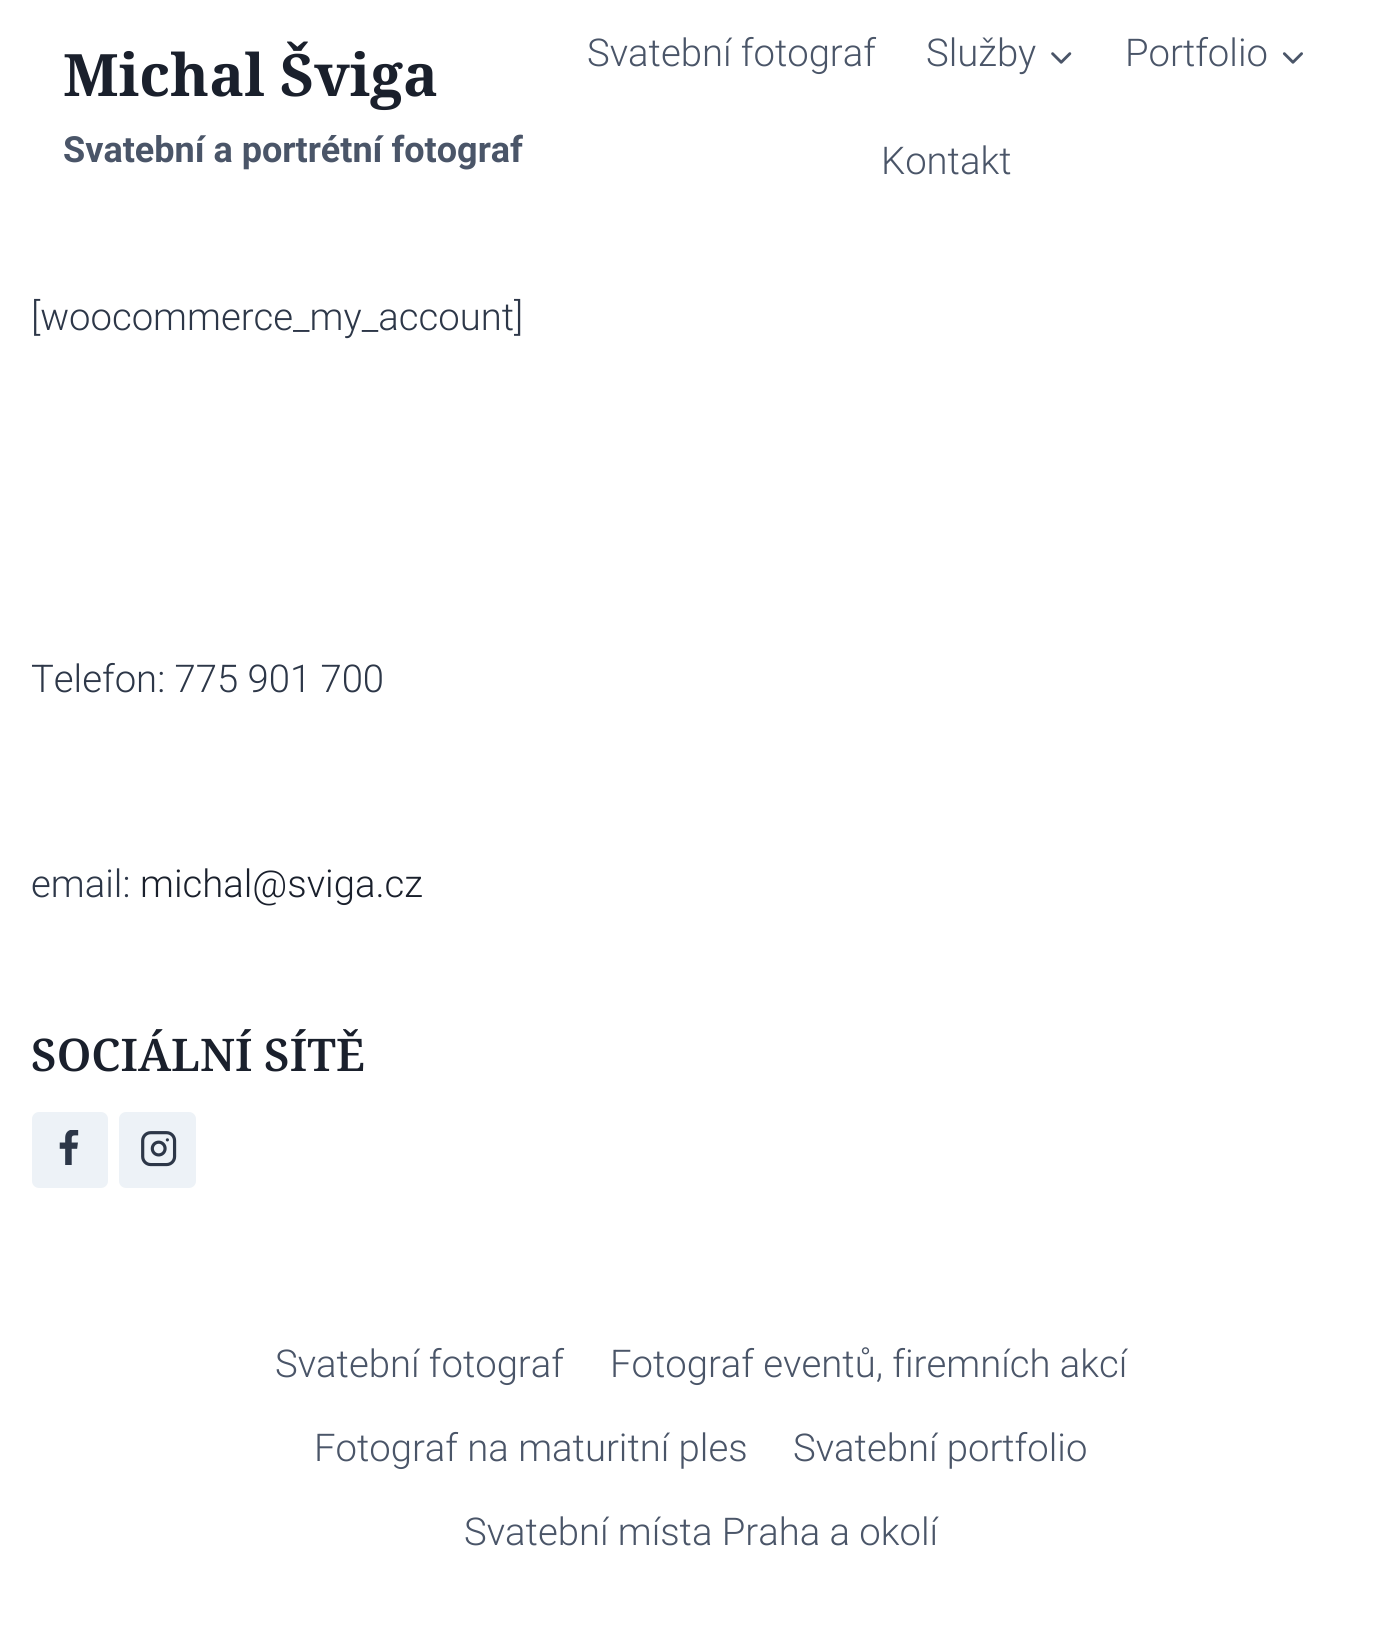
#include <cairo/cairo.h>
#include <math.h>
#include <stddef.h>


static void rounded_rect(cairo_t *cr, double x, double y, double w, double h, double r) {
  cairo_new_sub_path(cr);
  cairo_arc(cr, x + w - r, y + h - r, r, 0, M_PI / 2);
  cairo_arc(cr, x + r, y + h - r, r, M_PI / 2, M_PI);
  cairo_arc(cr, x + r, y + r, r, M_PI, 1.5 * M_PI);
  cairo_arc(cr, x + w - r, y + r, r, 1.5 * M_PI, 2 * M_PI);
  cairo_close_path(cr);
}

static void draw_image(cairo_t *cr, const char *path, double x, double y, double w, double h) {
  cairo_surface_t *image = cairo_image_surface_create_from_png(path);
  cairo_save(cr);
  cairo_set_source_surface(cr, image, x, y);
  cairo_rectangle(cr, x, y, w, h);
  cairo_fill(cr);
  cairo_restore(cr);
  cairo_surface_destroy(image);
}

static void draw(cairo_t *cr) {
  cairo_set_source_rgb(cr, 1, 1, 1);
  cairo_paint(cr);
  draw_image(cr, "images/1.png", 1051, 52, 21, 12);
  draw_image(cr, "images/2.png", 1282, 52, 21, 12);
  cairo_set_source_rgb(cr, 237 / 255.0, 242 / 255.0, 247 / 255.0);
  rounded_rect(cr, 32, 1112, 76, 76, 7);
  cairo_fill(cr);
  draw_image(cr, "images/3.png", 59, 1130, 20, 35);
  rounded_rect(cr, 119, 1112, 77, 76, 7);
  cairo_fill(cr);
  draw_image(cr, "images/4.png", 141, 1131, 36, 36);
  cairo_select_font_face(cr, "Noto Serif Georgian", CAIRO_FONT_SLANT_NORMAL, CAIRO_FONT_WEIGHT_BOLD);
  cairo_set_font_size(cr, 58.5);
  cairo_set_source_rgb(cr, 26 / 255.0, 32 / 255.0, 44 / 255.0);
  cairo_move_to(cr, 63, 96);
  cairo_show_text(cr, "Michal Šviga");
  cairo_select_font_face(cr, "Roboto", CAIRO_FONT_SLANT_NORMAL, CAIRO_FONT_WEIGHT_BOLD);
  cairo_set_font_size(cr, 36);
  cairo_set_source_rgb(cr, 74 / 255.0, 85 / 255.0, 104 / 255.0);
  cairo_move_to(cr, 63, 162);
  cairo_show_text(cr, "Svatební a portrétní fotograf");
  cairo_select_font_face(cr, "Roboto Light", CAIRO_FONT_SLANT_NORMAL, CAIRO_FONT_WEIGHT_NORMAL);
  cairo_set_font_size(cr, 38.25);
  cairo_move_to(cr, 587, 66);
  cairo_show_text(cr, "Svatební fotograf");
  cairo_move_to(cr, 926, 66);
  cairo_show_text(cr, "Služby");
  cairo_move_to(cr, 1125, 66);
  cairo_show_text(cr, "Portfolio");
  cairo_move_to(cr, 881, 174);
  cairo_show_text(cr, "Kontakt");
  cairo_set_source_rgb(cr, 45 / 255.0, 55 / 255.0, 72 / 255.0);
  cairo_move_to(cr, 31, 330);
  cairo_show_text(cr, "[woocommerce_my_account]");
  cairo_move_to(cr, 31, 692);
  cairo_show_text(cr, "Telefon: 775 901 700");
  cairo_move_to(cr, 31, 897);
  cairo_show_text(cr, "email:");
  cairo_set_source_rgb(cr, 26 / 255.0, 32 / 255.0, 44 / 255.0);
  cairo_move_to(cr, 140, 897);
  cairo_show_text(cr, "michal@sviga.cz");
  cairo_select_font_face(cr, "Noto Serif Georgian SemiBold", CAIRO_FONT_SLANT_NORMAL, CAIRO_FONT_WEIGHT_NORMAL);
  cairo_set_font_size(cr, 45);
  cairo_move_to(cr, 31, 1071);
  cairo_show_text(cr, "SOCIÁLNÍ SÍTĚ");
  cairo_select_font_face(cr, "Roboto Light", CAIRO_FONT_SLANT_NORMAL, CAIRO_FONT_WEIGHT_NORMAL);
  cairo_set_font_size(cr, 38.25);
  cairo_set_source_rgb(cr, 74 / 255.0, 85 / 255.0, 104 / 255.0);
  cairo_move_to(cr, 275, 1377);
  cairo_show_text(cr, "Svatební fotograf");
  cairo_move_to(cr, 610, 1377);
  cairo_show_text(cr, "Fotograf eventů, firemních akcí");
  cairo_move_to(cr, 314, 1461);
  cairo_show_text(cr, "Fotograf na maturitní ples");
  cairo_move_to(cr, 793, 1461);
  cairo_show_text(cr, "Svatební portfolio");
  cairo_move_to(cr, 464, 1545);
  cairo_show_text(cr, "Svatební místa Praha a okolí");
}

int main(void) {
  cairo_surface_t *surface = cairo_image_surface_create(CAIRO_FORMAT_RGB24, 1400, 1642);
  cairo_t *cr = cairo_create(surface);
  cairo_font_options_t *options = cairo_font_options_create();
  cairo_font_options_set_hint_metrics(options, CAIRO_HINT_METRICS_OFF);
  cairo_font_options_set_hint_style(options, CAIRO_HINT_STYLE_NONE);
  cairo_set_font_options(cr, options);
  cairo_set_miter_limit(cr, 4);
  draw(cr);
  cairo_surface_write_to_png(surface, "out.png");
  cairo_font_options_destroy(options);
  cairo_destroy(cr);
  cairo_surface_destroy(surface);
  return 0;
}
